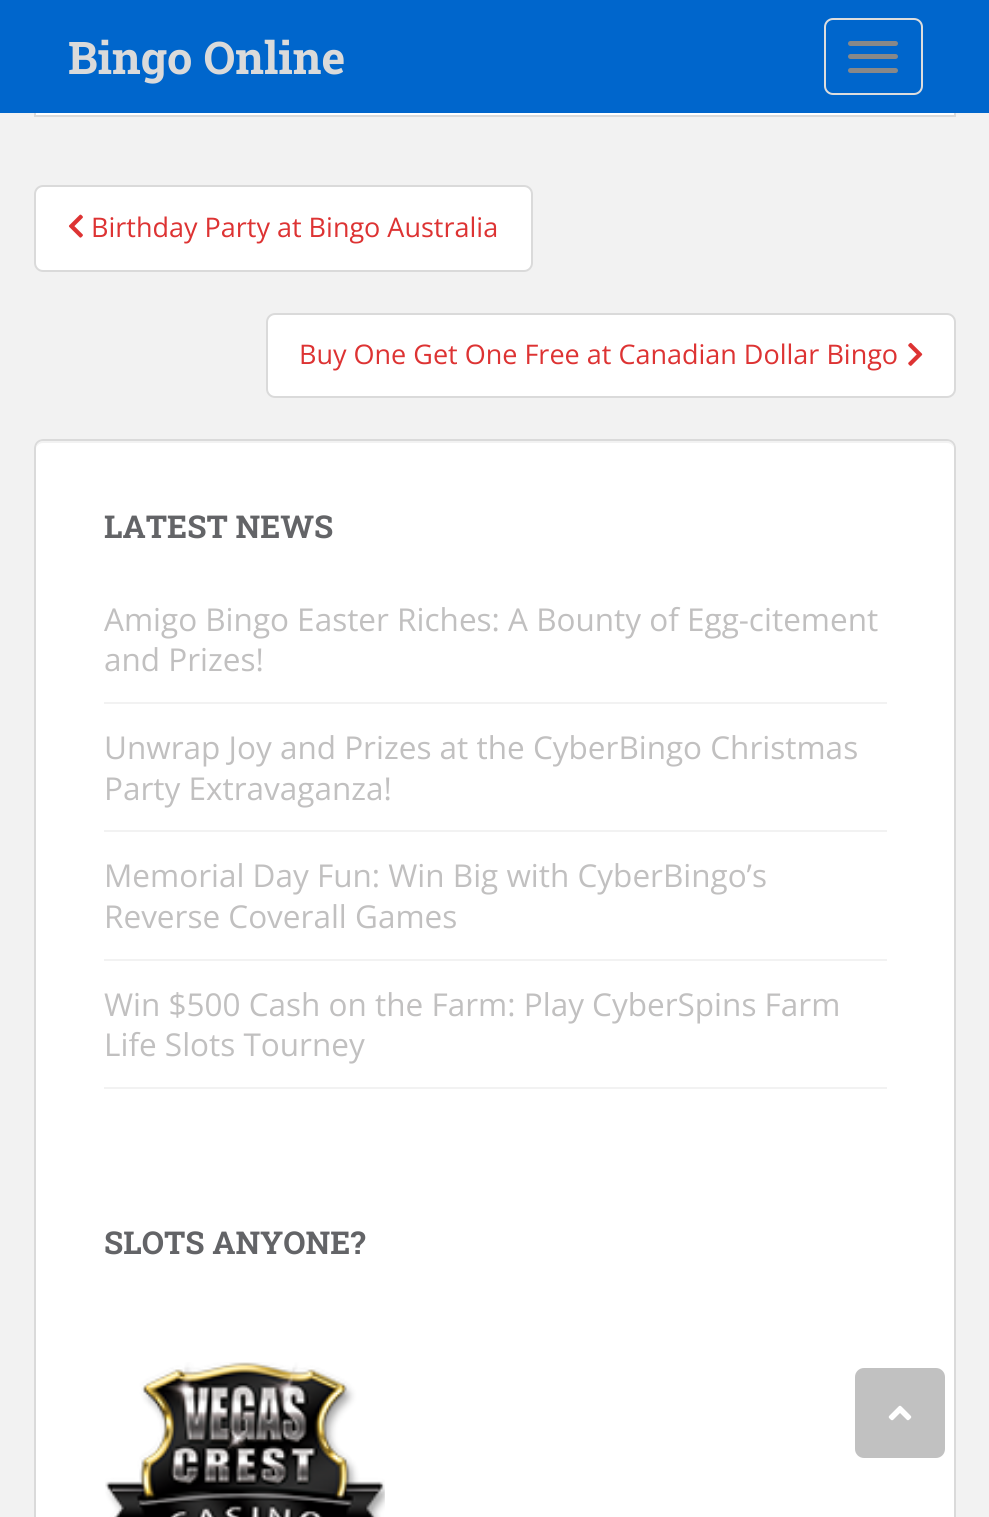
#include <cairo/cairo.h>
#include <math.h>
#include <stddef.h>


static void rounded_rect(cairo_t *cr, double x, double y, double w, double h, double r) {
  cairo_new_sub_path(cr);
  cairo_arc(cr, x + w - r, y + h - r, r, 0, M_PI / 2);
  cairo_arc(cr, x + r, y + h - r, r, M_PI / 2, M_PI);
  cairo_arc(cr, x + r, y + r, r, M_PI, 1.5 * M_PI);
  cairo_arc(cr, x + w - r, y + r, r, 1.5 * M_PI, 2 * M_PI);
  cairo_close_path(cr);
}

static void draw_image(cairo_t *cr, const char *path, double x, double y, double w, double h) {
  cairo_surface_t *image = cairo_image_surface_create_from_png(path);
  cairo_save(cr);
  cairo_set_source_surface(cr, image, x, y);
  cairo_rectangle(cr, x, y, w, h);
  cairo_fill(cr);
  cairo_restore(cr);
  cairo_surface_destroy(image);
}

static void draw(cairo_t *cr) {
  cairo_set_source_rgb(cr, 242 / 255.0, 242 / 255.0, 242 / 255.0);
  cairo_paint(cr);
  cairo_set_source_rgb(cr, 1, 1, 1);
  cairo_rectangle(cr, 36, 113, 918, 2);
  cairo_fill(cr);
  cairo_rectangle(cr, 35, -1, 920, 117);
  cairo_set_source_rgb(cr, 218 / 255.0, 218 / 255.0, 218 / 255.0);
  cairo_stroke(cr);
  cairo_set_source_rgb(cr, 0, 102 / 255.0, 204 / 255.0);
  cairo_rectangle(cr, 0, 0, 989, 113);
  cairo_fill(cr);
  rounded_rect(cr, 825, 19, 97, 75, 8);
  cairo_set_source_rgb(cr, 221 / 255.0, 221 / 255.0, 221 / 255.0);
  cairo_stroke(cr);
  cairo_set_source_rgb(cr, 136 / 255.0, 136 / 255.0, 136 / 255.0);
  rounded_rect(cr, 848, 41, 50, 5, 2.5);
  cairo_fill(cr);
  rounded_rect(cr, 848, 54, 50, 5, 2.5);
  cairo_fill(cr);
  rounded_rect(cr, 848, 68, 50, 5, 2.5);
  cairo_fill(cr);
  cairo_set_source_rgb(cr, 1, 1, 1);
  rounded_rect(cr, 35, 186, 497, 85, 8);
  cairo_fill_preserve(cr);
  cairo_set_source_rgb(cr, 218 / 255.0, 218 / 255.0, 218 / 255.0);
  cairo_stroke(cr);
  draw_image(cr, "images/1.png", 68, 214, 15, 24);
  cairo_set_source_rgb(cr, 1, 1, 1);
  rounded_rect(cr, 267, 314, 688, 83, 8);
  cairo_fill_preserve(cr);
  cairo_set_source_rgb(cr, 218 / 255.0, 218 / 255.0, 218 / 255.0);
  cairo_stroke(cr);
  draw_image(cr, "images/2.png", 908, 342, 15, 24);
  cairo_set_source_rgb(cr, 1, 1, 1);
  rounded_rect(cr, 34, 439, 922, 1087, 9);
  cairo_fill(cr);
  cairo_set_source_rgb(cr, 242 / 255.0, 242 / 255.0, 242 / 255.0);
  cairo_new_path(cr);
  cairo_move_to(cr, 43, 443);
  cairo_line_to(cr, 947, 443);
  cairo_curve_to(cr, 951, 443, 954, 446, 954, 450);
  cairo_curve_to(cr, 954, 446, 952, 441, 947, 441);
  cairo_line_to(cr, 43, 441);
  cairo_curve_to(cr, 38, 441, 36, 446, 36, 450);
  cairo_curve_to(cr, 36, 446, 39, 443, 43, 443);
  cairo_close_path(cr);
  cairo_fill(cr);
  rounded_rect(cr, 35, 440, 920, 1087, 8);
  cairo_set_source_rgb(cr, 218 / 255.0, 218 / 255.0, 218 / 255.0);
  cairo_stroke(cr);
  cairo_set_source_rgb(cr, 242 / 255.0, 242 / 255.0, 242 / 255.0);
  cairo_rectangle(cr, 104, 702, 783, 2);
  cairo_fill(cr);
  cairo_rectangle(cr, 104, 830, 783, 2);
  cairo_fill(cr);
  cairo_rectangle(cr, 104, 959, 783, 2);
  cairo_fill(cr);
  cairo_rectangle(cr, 104, 1087, 783, 2);
  cairo_fill(cr);
  draw_image(cr, "images/3.png", 105, 1362, 280, 155);
  cairo_set_source_rgb(cr, 193 / 255.0, 193 / 255.0, 193 / 255.0);
  rounded_rect(cr, 855, 1368, 90, 90, 9);
  cairo_fill(cr);
  draw_image(cr, "images/4.png", 888, 1405, 24, 16);
  cairo_select_font_face(cr, "Roboto Slab", CAIRO_FONT_SLANT_NORMAL, CAIRO_FONT_WEIGHT_BOLD);
  cairo_set_font_size(cr, 45);
  cairo_set_source_rgb(cr, 218 / 255.0, 218 / 255.0, 218 / 255.0);
  cairo_move_to(cr, 68, 74);
  cairo_show_text(cr, "Bingo Online");
  cairo_select_font_face(cr, "Open Sans", CAIRO_FONT_SLANT_NORMAL, CAIRO_FONT_WEIGHT_NORMAL);
  cairo_set_font_size(cr, 27);
  cairo_set_source_rgb(cr, 221 / 255.0, 51 / 255.0, 51 / 255.0);
  cairo_move_to(cr, 91, 237);
  cairo_show_text(cr, "Birthday Party at Bingo Australia");
  cairo_move_to(cr, 299, 364);
  cairo_show_text(cr, "Buy One Get One Free at Canadian Dollar Bingo");
  cairo_select_font_face(cr, "Roboto Slab", CAIRO_FONT_SLANT_NORMAL, CAIRO_FONT_WEIGHT_BOLD);
  cairo_set_font_size(cr, 31.5);
  cairo_set_source_rgb(cr, 99 / 255.0, 100 / 255.0, 103 / 255.0);
  cairo_move_to(cr, 104, 538);
  cairo_show_text(cr, "LATEST NEWS");
  cairo_select_font_face(cr, "Open Sans", CAIRO_FONT_SLANT_NORMAL, CAIRO_FONT_WEIGHT_NORMAL);
  cairo_set_source_rgb(cr, 193 / 255.0, 192 / 255.0, 192 / 255.0);
  cairo_move_to(cr, 104, 631);
  cairo_show_text(cr, "Amigo Bingo Easter Riches: A Bounty of Egg-citement");
  cairo_move_to(cr, 104, 671);
  cairo_show_text(cr, "and Prizes!");
  cairo_move_to(cr, 104, 759);
  cairo_show_text(cr, "Unwrap Joy and Prizes at the CyberBingo Christmas");
  cairo_move_to(cr, 104, 800);
  cairo_show_text(cr, "Party Extravaganza!");
  cairo_move_to(cr, 104, 887);
  cairo_show_text(cr, "Memorial Day Fun: Win Big with CyberBingo’s");
  cairo_move_to(cr, 104, 928);
  cairo_show_text(cr, "Reverse Coverall Games");
  cairo_move_to(cr, 104, 1016);
  cairo_show_text(cr, "Win $500 Cash on the Farm: Play CyberSpins Farm");
  cairo_move_to(cr, 104, 1056);
  cairo_show_text(cr, "Life Slots Tourney");
  cairo_select_font_face(cr, "Roboto Slab", CAIRO_FONT_SLANT_NORMAL, CAIRO_FONT_WEIGHT_BOLD);
  cairo_set_source_rgb(cr, 99 / 255.0, 100 / 255.0, 103 / 255.0);
  cairo_move_to(cr, 104, 1254);
  cairo_show_text(cr, "SLOTS ANYONE?");
}

int main(void) {
  cairo_surface_t *surface = cairo_image_surface_create(CAIRO_FORMAT_RGB24, 989, 1517);
  cairo_t *cr = cairo_create(surface);
  cairo_font_options_t *options = cairo_font_options_create();
  cairo_font_options_set_hint_metrics(options, CAIRO_HINT_METRICS_OFF);
  cairo_font_options_set_hint_style(options, CAIRO_HINT_STYLE_NONE);
  cairo_set_font_options(cr, options);
  cairo_set_miter_limit(cr, 4);
  draw(cr);
  cairo_surface_write_to_png(surface, "out.png");
  cairo_font_options_destroy(options);
  cairo_destroy(cr);
  cairo_surface_destroy(surface);
  return 0;
}
